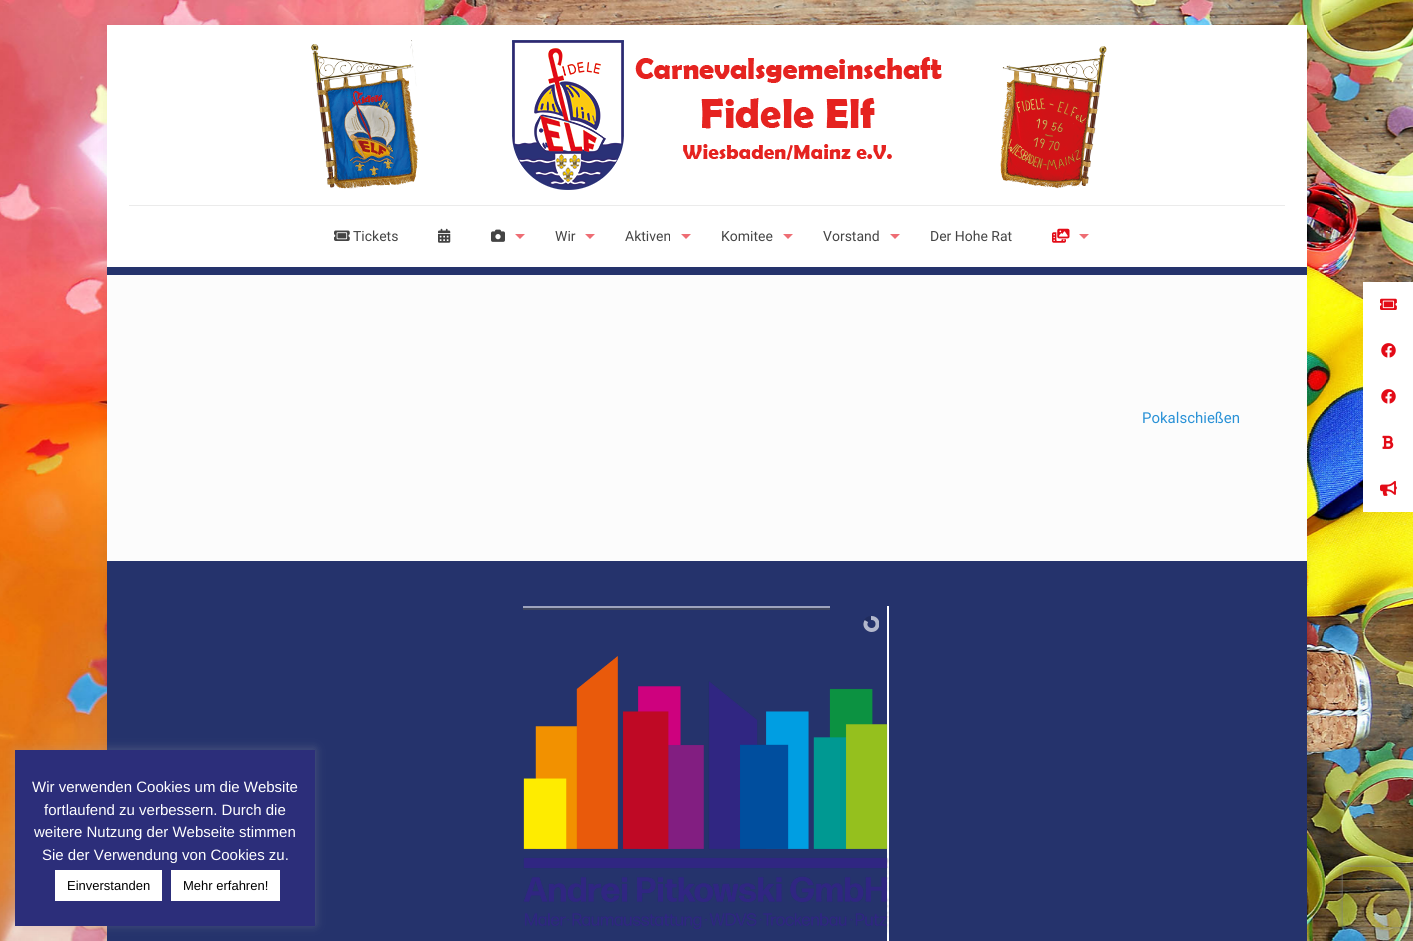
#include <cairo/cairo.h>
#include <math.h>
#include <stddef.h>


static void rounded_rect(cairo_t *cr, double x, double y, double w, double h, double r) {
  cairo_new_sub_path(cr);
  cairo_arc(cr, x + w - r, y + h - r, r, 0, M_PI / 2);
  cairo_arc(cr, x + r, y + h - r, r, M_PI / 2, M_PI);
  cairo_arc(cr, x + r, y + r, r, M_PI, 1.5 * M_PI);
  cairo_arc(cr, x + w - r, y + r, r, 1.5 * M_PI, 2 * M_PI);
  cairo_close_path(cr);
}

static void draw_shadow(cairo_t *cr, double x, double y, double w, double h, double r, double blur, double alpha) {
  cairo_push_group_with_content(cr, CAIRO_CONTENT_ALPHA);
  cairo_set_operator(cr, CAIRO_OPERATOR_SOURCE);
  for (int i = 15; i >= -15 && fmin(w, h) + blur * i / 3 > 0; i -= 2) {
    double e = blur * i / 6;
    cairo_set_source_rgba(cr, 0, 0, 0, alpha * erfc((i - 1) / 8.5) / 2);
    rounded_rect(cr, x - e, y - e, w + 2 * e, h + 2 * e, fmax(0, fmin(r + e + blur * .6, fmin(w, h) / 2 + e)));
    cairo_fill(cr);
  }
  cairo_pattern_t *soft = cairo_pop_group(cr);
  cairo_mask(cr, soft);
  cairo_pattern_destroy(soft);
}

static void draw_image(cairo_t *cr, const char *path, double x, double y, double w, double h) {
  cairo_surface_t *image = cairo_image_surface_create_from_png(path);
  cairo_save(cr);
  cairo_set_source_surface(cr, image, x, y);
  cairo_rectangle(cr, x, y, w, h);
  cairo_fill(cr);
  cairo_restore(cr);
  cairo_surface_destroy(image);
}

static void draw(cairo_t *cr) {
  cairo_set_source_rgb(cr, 1, 1, 1);
  cairo_paint(cr);
  draw_image(cr, "images/1.png", 0, 0, 1413, 941);
  cairo_set_source_rgb(cr, 0, 0, 0);
  draw_shadow(cr, 107, 25, 1200, 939, 0, 7.5, 0.06);
  cairo_set_source_rgb(cr, 252 / 255.0, 252 / 255.0, 252 / 255.0);
  cairo_rectangle(cr, 107, 275, 1200, 286);
  cairo_fill(cr);
  cairo_set_source_rgb(cr, 37 / 255.0, 51 / 255.0, 108 / 255.0);
  cairo_rectangle(cr, 107, 267, 1200, 8);
  cairo_fill(cr);
  cairo_set_source_rgb(cr, 1, 1, 1);
  cairo_rectangle(cr, 107, 25, 1200, 242);
  cairo_fill(cr);
  cairo_set_source_rgb(cr, 235 / 255.0, 235 / 255.0, 235 / 255.0);
  cairo_rectangle(cr, 129, 205, 1156, 1);
  cairo_fill(cr);
  draw_image(cr, "images/2.png", 311, 40, 796, 150);
  draw_image(cr, "images/3.png", 334, 230, 16, 11);
  draw_image(cr, "images/4.png", 438, 228, 13, 15);
  draw_image(cr, "images/5.png", 491, 229, 14, 13);
  cairo_set_source_rgb(cr, 238 / 255.0, 109 / 255.0, 116 / 255.0);
  cairo_new_path(cr);
  cairo_move_to(cr, 515, 234);
  cairo_line_to(cr, 525, 234);
  cairo_line_to(cr, 520, 239);
  cairo_close_path(cr);
  cairo_fill(cr);
  cairo_new_path(cr);
  cairo_move_to(cr, 585, 234);
  cairo_line_to(cr, 595, 234);
  cairo_line_to(cr, 590, 239);
  cairo_close_path(cr);
  cairo_fill(cr);
  cairo_new_path(cr);
  cairo_move_to(cr, 681, 234);
  cairo_line_to(cr, 691, 234);
  cairo_line_to(cr, 686, 239);
  cairo_close_path(cr);
  cairo_fill(cr);
  cairo_new_path(cr);
  cairo_move_to(cr, 783, 234);
  cairo_line_to(cr, 793, 234);
  cairo_line_to(cr, 788, 239);
  cairo_close_path(cr);
  cairo_fill(cr);
  cairo_new_path(cr);
  cairo_move_to(cr, 890, 234);
  cairo_line_to(cr, 900, 234);
  cairo_line_to(cr, 895, 239);
  cairo_close_path(cr);
  cairo_fill(cr);
  draw_image(cr, "images/6.png", 1052, 228, 18, 15);
  cairo_new_path(cr);
  cairo_move_to(cr, 1079, 234);
  cairo_line_to(cr, 1089, 234);
  cairo_line_to(cr, 1084, 239);
  cairo_close_path(cr);
  cairo_fill(cr);
  cairo_set_source_rgb(cr, 37 / 255.0, 51 / 255.0, 108 / 255.0);
  cairo_rectangle(cr, 107, 561, 1200, 380);
  cairo_fill(cr);
  draw_image(cr, "images/7.png", 887, 606, 2, 335);
  draw_image(cr, "images/8.png", 523, 656, 365, 273);
  cairo_set_source_rgb(cr, 157 / 255.0, 163 / 255.0, 189 / 255.0);
  cairo_rectangle(cr, 523, 606, 307, 2);
  cairo_fill(cr);
  cairo_set_source_rgb(cr, 63 / 255.0, 70 / 255.0, 95 / 255.0);
  cairo_rectangle(cr, 523, 608, 307, 2);
  cairo_fill(cr);
  cairo_arc(cr, 871, 624, 6, 0, 2 * M_PI);
  cairo_set_source_rgb(cr, 32 / 255.0, 44 / 255.0, 94 / 255.0);
  cairo_set_line_width(cr, 4);
  cairo_stroke(cr);
  cairo_save(cr);
  cairo_rectangle(cr, 863, 616, 8, 16);
  cairo_clip(cr);
  cairo_new_path(cr);
  cairo_move_to(cr, 878.5, 628);
  cairo_line_to(cr, 874, 635);
  cairo_line_to(cr, 860.5, 626.5);
  cairo_line_to(cr, 864.5, 620);
  cairo_close_path(cr);
  cairo_clip(cr);
  cairo_new_path(cr);
  cairo_move_to(cr, 876.5, 627);
  cairo_curve_to(cr, 872.5, 634, 862, 627.5, 866.5, 621);
  cairo_curve_to(cr, 870.5, 614, 880.5, 620.5, 876.5, 627);
  cairo_close_path(cr);
  cairo_set_source_rgb(cr, 179 / 255.0, 184 / 255.0, 204 / 255.0);
  cairo_stroke(cr);
  cairo_restore(cr);
  cairo_save(cr);
  cairo_rectangle(cr, 871, 616, 8, 16);
  cairo_clip(cr);
  cairo_new_path(cr);
  cairo_move_to(cr, 871.5, 630);
  cairo_curve_to(cr, 863.5, 630, 863.5, 618, 871.5, 618);
  cairo_curve_to(cr, 879.5, 618, 879.5, 630, 871.5, 630);
  cairo_close_path(cr);
  cairo_set_source_rgb(cr, 179 / 255.0, 184 / 255.0, 204 / 255.0);
  cairo_stroke(cr);
  cairo_restore(cr);
  cairo_set_source_rgb(cr, 1, 1, 1);
  cairo_rectangle(cr, 1363, 282, 50, 230);
  cairo_fill(cr);
  draw_image(cr, "images/9.png", 1380, 298, 17, 12);
  draw_image(cr, "images/10.png", 1381, 343, 15, 15);
  draw_image(cr, "images/10.png", 1381, 389, 15, 15);
  draw_image(cr, "images/11.png", 1382, 435, 12, 14);
  draw_image(cr, "images/12.png", 1380, 480, 17, 16);
  cairo_set_source_rgb(cr, 172 / 255.0, 171 / 255.0, 171 / 255.0);
  draw_shadow(cr, 15, 749, 300, 176, 0, 5, 0.3);
  cairo_set_source_rgb(cr, 44 / 255.0, 46 / 255.0, 122 / 255.0);
  cairo_rectangle(cr, 15, 750, 300, 176);
  cairo_fill(cr);
  cairo_set_source_rgb(cr, 1, 1, 1);
  cairo_rectangle(cr, 55, 870, 107, 31);
  cairo_fill(cr);
  cairo_rectangle(cr, 171, 870, 109, 31);
  cairo_fill(cr);
  cairo_save(cr);
  cairo_set_fill_rule(cr, CAIRO_FILL_RULE_EVEN_ODD);
  cairo_new_path(cr);
  cairo_move_to(cr, 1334, 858);
  cairo_line_to(cr, 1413, 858);
  cairo_line_to(cr, 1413, 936);
  cairo_line_to(cr, 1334, 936);
  cairo_close_path(cr);
  cairo_move_to(cr, 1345, 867);
  cairo_line_to(cr, 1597, 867);
  cairo_curve_to(cr, 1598, 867, 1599, 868, 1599, 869);
  cairo_line_to(cr, 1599, 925);
  cairo_curve_to(cr, 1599, 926, 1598, 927, 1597, 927);
  cairo_line_to(cr, 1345, 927);
  cairo_curve_to(cr, 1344, 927, 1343, 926, 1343, 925);
  cairo_line_to(cr, 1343, 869);
  cairo_curve_to(cr, 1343, 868, 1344, 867, 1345, 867);
  cairo_close_path(cr);
  cairo_clip(cr);
  cairo_set_source_rgb(cr, 128 / 255.0, 128 / 255.0, 128 / 255.0);
  draw_shadow(cr, 1343, 867, 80, 60, 2, 2.5, 1);
  cairo_restore(cr);
  cairo_select_font_face(cr, "Roboto", CAIRO_FONT_SLANT_NORMAL, CAIRO_FONT_WEIGHT_NORMAL);
  cairo_set_font_size(cr, 14);
  cairo_set_source_rgb(cr, 68 / 255.0, 68 / 255.0, 68 / 255.0);
  cairo_move_to(cr, 353, 241);
  cairo_show_text(cr, "Tickets");
  cairo_move_to(cr, 555, 241);
  cairo_show_text(cr, "Wir");
  cairo_move_to(cr, 625, 241);
  cairo_show_text(cr, "Aktiven");
  cairo_move_to(cr, 721, 241);
  cairo_show_text(cr, "Komitee");
  cairo_move_to(cr, 823, 241);
  cairo_show_text(cr, "Vorstand");
  cairo_move_to(cr, 930, 241);
  cairo_show_text(cr, "Der Hohe Rat");
  cairo_set_font_size(cr, 15);
  cairo_set_source_rgb(cr, 41 / 255.0, 145 / 255.0, 214 / 255.0);
  cairo_move_to(cr, 1142, 423);
  cairo_show_text(cr, "Pokalschießen");
  cairo_select_font_face(cr, "Liberation Sans", CAIRO_FONT_SLANT_NORMAL, CAIRO_FONT_WEIGHT_NORMAL);
  cairo_set_source_rgb(cr, 1, 1, 1);
  cairo_move_to(cr, 32, 792);
  cairo_show_text(cr, "Wir verwenden Cookies um die Website");
  cairo_move_to(cr, 44, 815);
  cairo_show_text(cr, "fortlaufend zu verbessern. Durch die");
  cairo_move_to(cr, 34, 837);
  cairo_show_text(cr, "weitere Nutzung der Webseite stimmen");
  cairo_move_to(cr, 42, 860);
  cairo_show_text(cr, "Sie der Verwendung von Cookies zu.");
  cairo_set_font_size(cr, 13);
  cairo_set_source_rgb(cr, 0, 0, 0);
  cairo_move_to(cr, 67, 890);
  cairo_show_text(cr, "Einverstanden");
  cairo_move_to(cr, 183, 890);
  cairo_show_text(cr, "Mehr erfahren!");
}

int main(void) {
  cairo_surface_t *surface = cairo_image_surface_create(CAIRO_FORMAT_RGB24, 1413, 941);
  cairo_t *cr = cairo_create(surface);
  cairo_font_options_t *options = cairo_font_options_create();
  cairo_font_options_set_hint_metrics(options, CAIRO_HINT_METRICS_OFF);
  cairo_font_options_set_hint_style(options, CAIRO_HINT_STYLE_NONE);
  cairo_set_font_options(cr, options);
  cairo_set_miter_limit(cr, 4);
  draw(cr);
  cairo_surface_write_to_png(surface, "out.png");
  cairo_font_options_destroy(options);
  cairo_destroy(cr);
  cairo_surface_destroy(surface);
  return 0;
}
